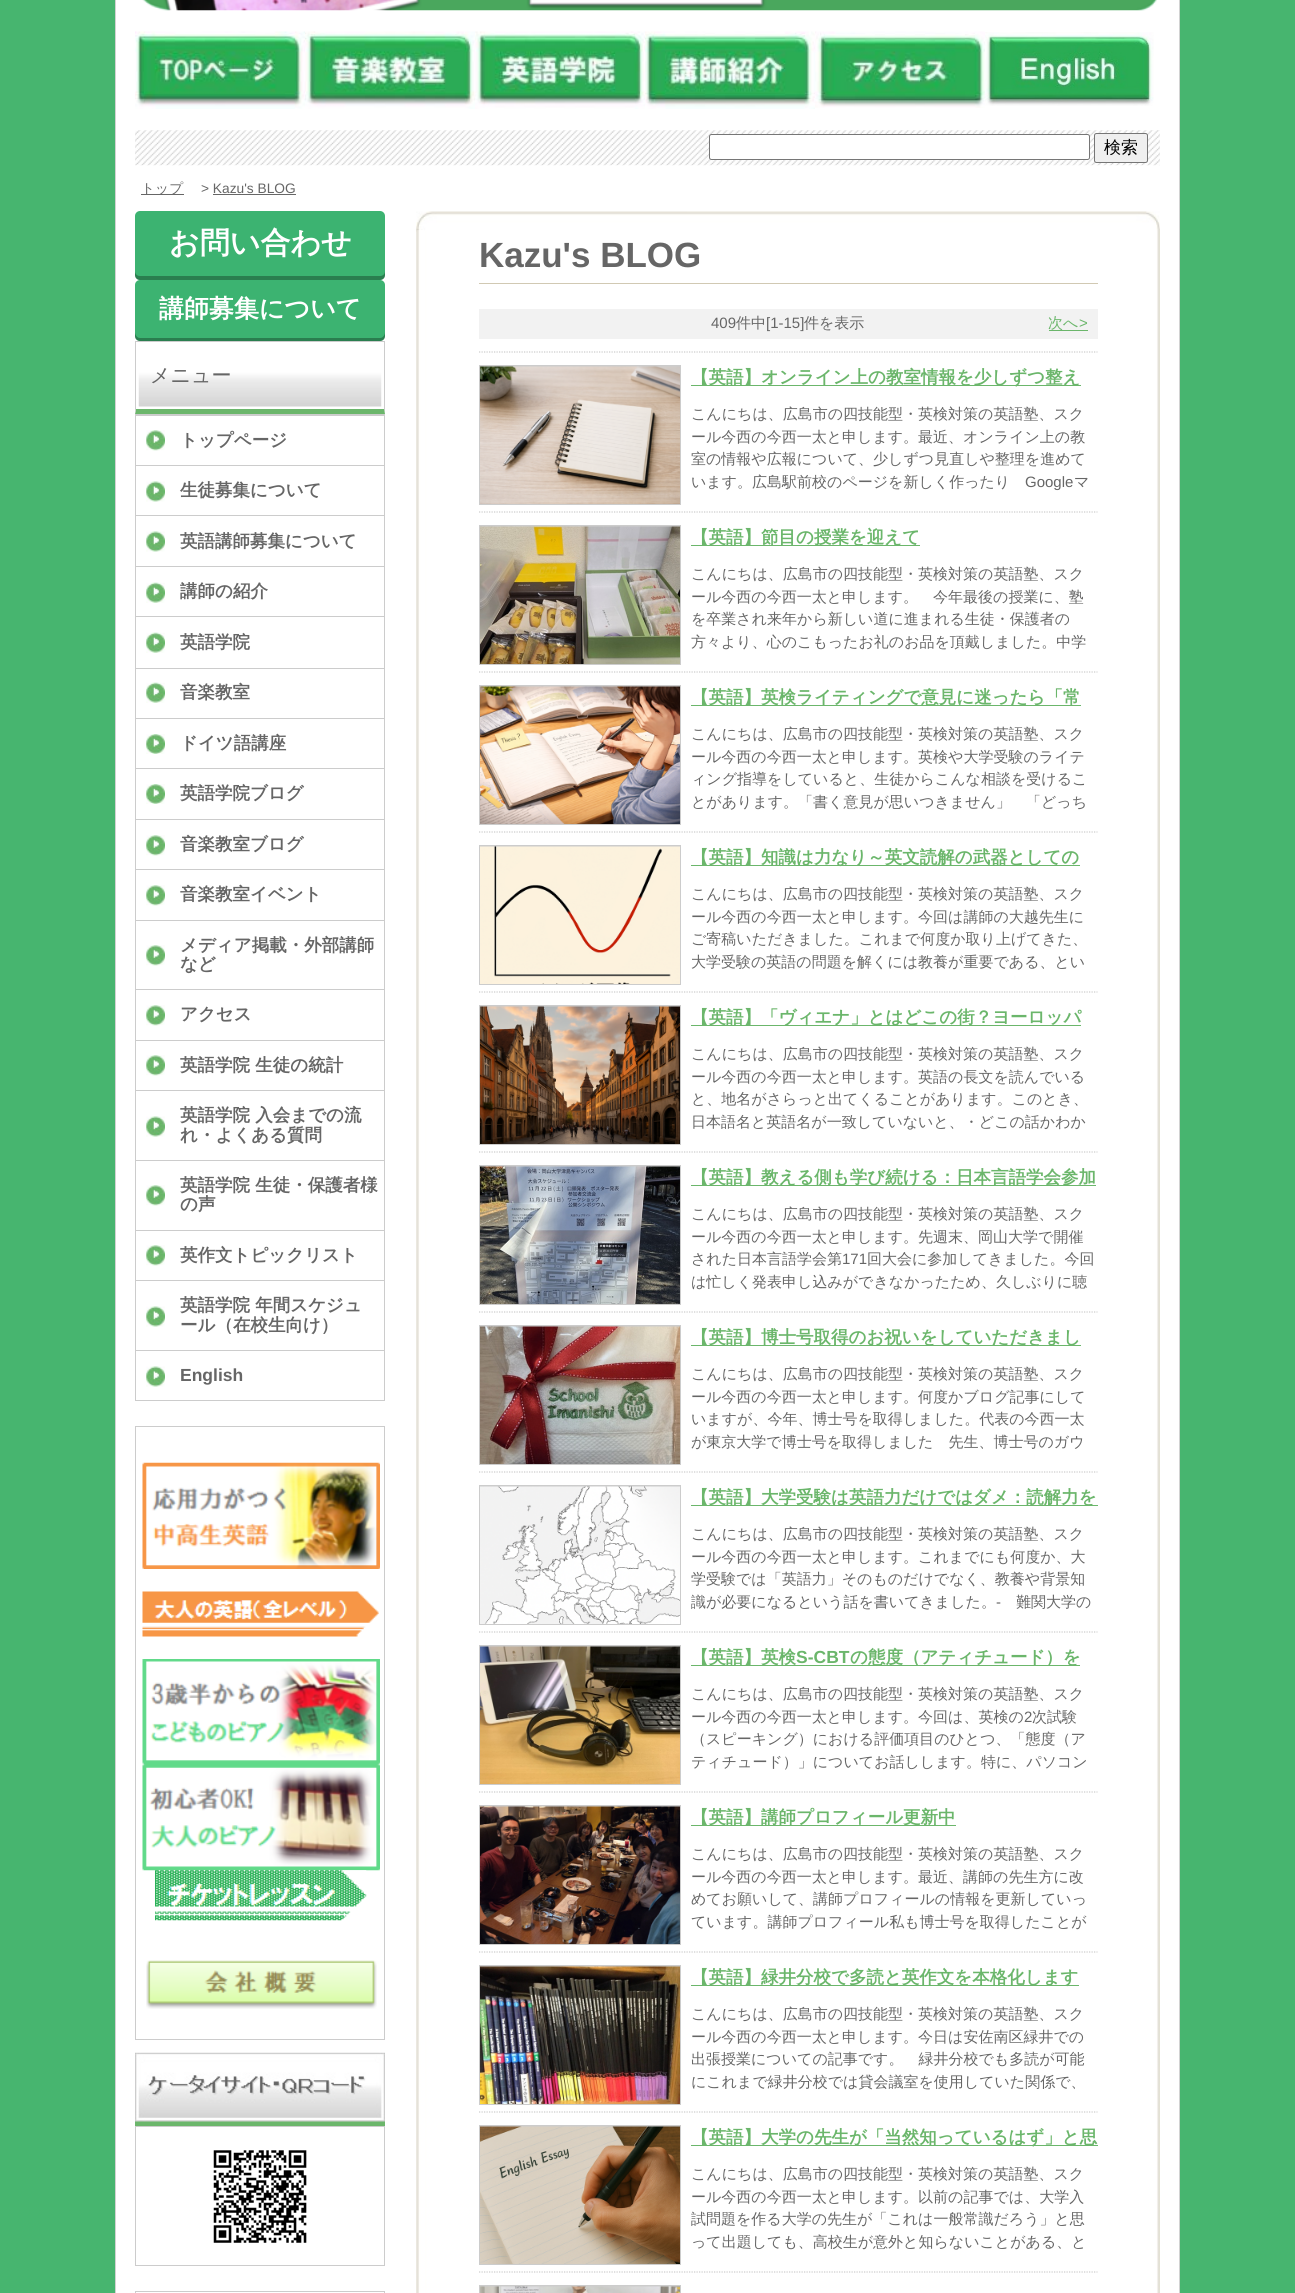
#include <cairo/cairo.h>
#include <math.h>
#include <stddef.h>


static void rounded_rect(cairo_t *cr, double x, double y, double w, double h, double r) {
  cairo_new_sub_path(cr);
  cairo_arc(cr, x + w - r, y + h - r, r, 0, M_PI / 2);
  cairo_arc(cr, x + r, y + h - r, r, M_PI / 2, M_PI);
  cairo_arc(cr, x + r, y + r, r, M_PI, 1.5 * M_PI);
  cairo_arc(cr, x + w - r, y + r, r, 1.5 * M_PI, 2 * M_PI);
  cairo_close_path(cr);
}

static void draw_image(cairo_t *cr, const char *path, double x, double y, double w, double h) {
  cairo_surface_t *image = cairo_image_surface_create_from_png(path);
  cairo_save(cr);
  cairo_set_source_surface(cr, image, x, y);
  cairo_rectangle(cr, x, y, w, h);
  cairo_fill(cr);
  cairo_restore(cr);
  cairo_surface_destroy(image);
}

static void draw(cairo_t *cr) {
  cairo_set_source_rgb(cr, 71 / 255.0, 181 / 255.0, 111 / 255.0);
  cairo_paint(cr);
  cairo_set_source_rgb(cr, 1, 1, 1);
  cairo_rectangle(cr, 115.5, -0.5, 1064, 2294);
  cairo_fill_preserve(cr);
  cairo_set_source_rgb(cr, 210 / 255.0, 210 / 255.0, 210 / 255.0);
  cairo_set_line_width(cr, 1);
  cairo_stroke(cr);
  draw_image(cr, "images/1.png", 142, 0, 1015, 11);
  draw_image(cr, "images/2.png", 135, 31, 170, 78);
  draw_image(cr, "images/3.png", 305, 31, 170, 78);
  draw_image(cr, "images/4.png", 475, 31, 170, 78);
  draw_image(cr, "images/5.png", 645, 31, 170, 78);
  draw_image(cr, "images/6.png", 815, 31, 170, 77);
  draw_image(cr, "images/7.png", 985, 32, 169, 74);
  draw_image(cr, "images/8.png", 135, 130, 1025, 36);
  cairo_set_source_rgb(cr, 1, 1, 1);
  rounded_rect(cr, 709.5, 134.5, 380, 25, 2);
  cairo_fill_preserve(cr);
  cairo_set_source_rgb(cr, 118 / 255.0, 118 / 255.0, 118 / 255.0);
  cairo_stroke(cr);
  cairo_set_source_rgb(cr, 239 / 255.0, 239 / 255.0, 239 / 255.0);
  rounded_rect(cr, 1094.5, 133.5, 53, 29, 2);
  cairo_fill_preserve(cr);
  cairo_set_source_rgb(cr, 118 / 255.0, 118 / 255.0, 118 / 255.0);
  cairo_stroke(cr);
  cairo_set_source_rgb(cr, 102 / 255.0, 102 / 255.0, 102 / 255.0);
  cairo_rectangle(cr, 141, 194, 43, 1);
  cairo_fill(cr);
  cairo_rectangle(cr, 213, 194, 83, 1);
  cairo_fill(cr);
  cairo_set_source_rgb(cr, 60 / 255.0, 179 / 255.0, 113 / 255.0);
  rounded_rect(cr, 135, 211, 250, 69, 5);
  cairo_fill(cr);
  cairo_set_source_rgba(cr, 0, 0, 0, 0.3);
  cairo_new_path(cr);
  cairo_move_to(cr, 135, 271);
  cairo_line_to(cr, 135, 275);
  cairo_curve_to(cr, 135, 278, 137, 280, 140, 280);
  cairo_line_to(cr, 380, 280);
  cairo_curve_to(cr, 383, 280, 385, 278, 385, 275);
  cairo_line_to(cr, 385, 271);
  cairo_curve_to(cr, 385, 274, 383, 276, 380, 276);
  cairo_line_to(cr, 140, 276);
  cairo_curve_to(cr, 137, 276, 135, 274, 135, 271);
  cairo_close_path(cr);
  cairo_fill(cr);
  cairo_set_source_rgb(cr, 60 / 255.0, 179 / 255.0, 113 / 255.0);
  rounded_rect(cr, 135, 280, 250, 61, 5);
  cairo_fill(cr);
  cairo_set_source_rgba(cr, 0, 0, 0, 0.3);
  cairo_new_path(cr);
  cairo_move_to(cr, 135, 332);
  cairo_line_to(cr, 135, 336);
  cairo_curve_to(cr, 135, 339, 137, 341, 140, 341);
  cairo_line_to(cr, 380, 341);
  cairo_curve_to(cr, 383, 341, 385, 339, 385, 336);
  cairo_line_to(cr, 385, 332);
  cairo_curve_to(cr, 385, 335, 383, 338, 380, 338);
  cairo_line_to(cr, 140, 338);
  cairo_curve_to(cr, 137, 338, 135, 335, 135, 332);
  cairo_close_path(cr);
  cairo_fill(cr);
  cairo_set_source_rgb(cr, 204 / 255.0, 204 / 255.0, 204 / 255.0);
  cairo_rectangle(cr, 135, 341, 250, 1);
  cairo_fill(cr);
  cairo_new_path(cr);
  cairo_move_to(cr, 385, 341);
  cairo_line_to(cr, 385, 414);
  cairo_line_to(cr, 384, 409);
  cairo_line_to(cr, 384, 342);
  cairo_close_path(cr);
  cairo_fill(cr);
  cairo_set_source_rgb(cr, 107 / 255.0, 182 / 255.0, 107 / 255.0);
  cairo_new_path(cr);
  cairo_move_to(cr, 385, 414);
  cairo_line_to(cr, 135, 414);
  cairo_line_to(cr, 136, 409);
  cairo_line_to(cr, 384, 409);
  cairo_close_path(cr);
  cairo_fill(cr);
  cairo_set_source_rgb(cr, 204 / 255.0, 204 / 255.0, 204 / 255.0);
  cairo_new_path(cr);
  cairo_move_to(cr, 135, 414);
  cairo_line_to(cr, 135, 341);
  cairo_line_to(cr, 136, 342);
  cairo_line_to(cr, 136, 409);
  cairo_close_path(cr);
  cairo_fill(cr);
  draw_image(cr, "images/9.png", 138, 345, 244, 62);
  cairo_rectangle(cr, 135.5, 414.5, 249, 986);
  cairo_stroke(cr);
  cairo_rectangle(cr, 136, 415, 248, 1);
  cairo_fill(cr);
  draw_image(cr, "images/10.png", 146, 430, 19, 21);
  cairo_rectangle(cr, 136, 465, 248, 1);
  cairo_fill(cr);
  draw_image(cr, "images/11.png", 146, 481, 19, 21);
  cairo_rectangle(cr, 136, 515, 248, 1);
  cairo_fill(cr);
  draw_image(cr, "images/11.png", 146, 531, 19, 21);
  cairo_rectangle(cr, 136, 566, 248, 1);
  cairo_fill(cr);
  draw_image(cr, "images/12.png", 146, 582, 19, 21);
  cairo_rectangle(cr, 136, 616, 248, 1);
  cairo_fill(cr);
  draw_image(cr, "images/12.png", 146, 632, 19, 21);
  cairo_rectangle(cr, 136, 668, 248, 1);
  cairo_fill(cr);
  draw_image(cr, "images/12.png", 146, 682, 19, 21);
  cairo_rectangle(cr, 136, 718, 248, 1);
  cairo_fill(cr);
  draw_image(cr, "images/13.png", 146, 734, 19, 20);
  cairo_rectangle(cr, 136, 768, 248, 1);
  cairo_fill(cr);
  draw_image(cr, "images/14.png", 146, 784, 19, 20);
  cairo_rectangle(cr, 136, 819, 248, 1);
  cairo_fill(cr);
  draw_image(cr, "images/10.png", 146, 835, 19, 21);
  cairo_rectangle(cr, 136, 869, 248, 1);
  cairo_fill(cr);
  draw_image(cr, "images/10.png", 146, 885, 19, 21);
  cairo_rectangle(cr, 136, 920, 248, 1);
  cairo_fill(cr);
  draw_image(cr, "images/10.png", 146, 945, 19, 21);
  cairo_rectangle(cr, 136, 989, 248, 1);
  cairo_fill(cr);
  draw_image(cr, "images/10.png", 146, 1005, 19, 21);
  cairo_rectangle(cr, 136, 1040, 248, 1);
  cairo_fill(cr);
  draw_image(cr, "images/10.png", 146, 1055, 19, 21);
  cairo_rectangle(cr, 136, 1090, 248, 1);
  cairo_fill(cr);
  draw_image(cr, "images/11.png", 146, 1116, 19, 21);
  cairo_rectangle(cr, 136, 1160, 248, 1);
  cairo_fill(cr);
  draw_image(cr, "images/10.png", 146, 1185, 19, 21);
  cairo_rectangle(cr, 136, 1230, 248, 1);
  cairo_fill(cr);
  draw_image(cr, "images/10.png", 146, 1245, 19, 21);
  cairo_rectangle(cr, 136, 1280, 248, 1);
  cairo_fill(cr);
  draw_image(cr, "images/11.png", 146, 1306, 19, 21);
  cairo_rectangle(cr, 136, 1350, 248, 1);
  cairo_fill(cr);
  draw_image(cr, "images/11.png", 146, 1366, 19, 21);
  cairo_rectangle(cr, 135.5, 1426.5, 249, 613);
  cairo_stroke(cr);
  draw_image(cr, "images/15.png", 142, 1462, 238, 107);
  draw_image(cr, "images/16.png", 142, 1591, 237, 46);
  draw_image(cr, "images/17.png", 142, 1659, 238, 105);
  draw_image(cr, "images/18.png", 142, 1764, 238, 107);
  draw_image(cr, "images/19.png", 155, 1870, 212, 51);
  draw_image(cr, "images/20.png", 146, 1960, 231, 49);
  cairo_set_source_rgb(cr, 107 / 255.0, 182 / 255.0, 107 / 255.0);
  cairo_rectangle(cr, 135, 2121, 250, 5);
  cairo_fill(cr);
  draw_image(cr, "images/21.png", 135, 2052, 250, 70);
  cairo_rectangle(cr, 135.5, 2126.5, 249, 139);
  cairo_set_source_rgb(cr, 204 / 255.0, 204 / 255.0, 204 / 255.0);
  cairo_stroke(cr);
  draw_image(cr, "images/22.png", 213, 2150, 94, 93);
  cairo_rectangle(cr, 135.5, 2291.5, 249, 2);
  cairo_stroke(cr);
  draw_image(cr, "images/23.png", 416, 211, 744, 21);
  draw_image(cr, "images/24.png", 416, 230, 744, 2063);
  cairo_set_source_rgb(cr, 209 / 255.0, 201 / 255.0, 179 / 255.0);
  cairo_rectangle(cr, 479, 283, 619, 1);
  cairo_fill(cr);
  cairo_set_source_rgb(cr, 242 / 255.0, 242 / 255.0, 242 / 255.0);
  cairo_rectangle(cr, 479, 309, 619, 30);
  cairo_fill(cr);
  cairo_set_source_rgb(cr, 107 / 255.0, 182 / 255.0, 107 / 255.0);
  cairo_rectangle(cr, 1049, 330, 39, 1);
  cairo_fill(cr);
  cairo_new_path(cr);
  cairo_move_to(cr, 479, 352);
  cairo_line_to(cr, 1097.5, 352);
  cairo_set_source_rgb(cr, 204 / 255.0, 204 / 255.0, 204 / 255.0);
  cairo_set_line_width(cr, 1.2);
  cairo_set_dash(cr, (double[]){1.25, 1.25}, 2, 0);
  cairo_stroke(cr);
  cairo_new_path(cr);
  cairo_move_to(cr, 479, 512);
  cairo_line_to(cr, 1097.5, 512);
  cairo_stroke(cr);
  cairo_rectangle(cr, 479, 365, 202, 140);
  cairo_fill(cr);
  draw_image(cr, "images/25.png", 480, 366, 200, 138);
  cairo_set_source_rgb(cr, 107 / 255.0, 182 / 255.0, 107 / 255.0);
  cairo_rectangle(cr, 691, 385, 390, 1);
  cairo_fill(cr);
  cairo_new_path(cr);
  cairo_move_to(cr, 479, 672);
  cairo_line_to(cr, 1097.5, 672);
  cairo_set_source_rgb(cr, 204 / 255.0, 204 / 255.0, 204 / 255.0);
  cairo_stroke(cr);
  cairo_rectangle(cr, 479, 525, 202, 140);
  cairo_fill(cr);
  draw_image(cr, "images/26.png", 480, 526, 200, 138);
  cairo_set_source_rgb(cr, 107 / 255.0, 182 / 255.0, 107 / 255.0);
  cairo_rectangle(cr, 691, 545, 229, 1);
  cairo_fill(cr);
  cairo_new_path(cr);
  cairo_move_to(cr, 479, 832);
  cairo_line_to(cr, 1097.5, 832);
  cairo_set_source_rgb(cr, 204 / 255.0, 204 / 255.0, 204 / 255.0);
  cairo_stroke(cr);
  cairo_rectangle(cr, 479, 685, 202, 140);
  cairo_fill(cr);
  draw_image(cr, "images/27.png", 480, 686, 200, 138);
  cairo_set_source_rgb(cr, 107 / 255.0, 182 / 255.0, 107 / 255.0);
  cairo_rectangle(cr, 691, 705, 390, 1);
  cairo_fill(cr);
  cairo_new_path(cr);
  cairo_move_to(cr, 479, 992);
  cairo_line_to(cr, 1097.5, 992);
  cairo_set_source_rgb(cr, 204 / 255.0, 204 / 255.0, 204 / 255.0);
  cairo_stroke(cr);
  cairo_rectangle(cr, 479, 845, 202, 140);
  cairo_fill(cr);
  draw_image(cr, "images/28.png", 480, 846, 200, 138);
  cairo_set_source_rgb(cr, 107 / 255.0, 182 / 255.0, 107 / 255.0);
  cairo_rectangle(cr, 691, 865, 389, 1);
  cairo_fill(cr);
  cairo_new_path(cr);
  cairo_move_to(cr, 479, 1152);
  cairo_line_to(cr, 1097.5, 1152);
  cairo_set_source_rgb(cr, 204 / 255.0, 204 / 255.0, 204 / 255.0);
  cairo_stroke(cr);
  cairo_rectangle(cr, 479, 1005, 202, 140);
  cairo_fill(cr);
  draw_image(cr, "images/29.png", 480, 1006, 200, 138);
  cairo_set_source_rgb(cr, 107 / 255.0, 182 / 255.0, 107 / 255.0);
  cairo_rectangle(cr, 691, 1025, 390, 1);
  cairo_fill(cr);
  cairo_new_path(cr);
  cairo_move_to(cr, 479, 1312);
  cairo_line_to(cr, 1097.5, 1312);
  cairo_set_source_rgb(cr, 204 / 255.0, 204 / 255.0, 204 / 255.0);
  cairo_stroke(cr);
  cairo_rectangle(cr, 479, 1165, 202, 140);
  cairo_fill(cr);
  draw_image(cr, "images/30.png", 480, 1166, 200, 138);
  cairo_set_source_rgb(cr, 107 / 255.0, 182 / 255.0, 107 / 255.0);
  cairo_rectangle(cr, 691, 1185, 405, 1);
  cairo_fill(cr);
  cairo_new_path(cr);
  cairo_move_to(cr, 479, 1472);
  cairo_line_to(cr, 1097.5, 1472);
  cairo_set_source_rgb(cr, 204 / 255.0, 204 / 255.0, 204 / 255.0);
  cairo_stroke(cr);
  cairo_rectangle(cr, 479, 1325, 202, 140);
  cairo_fill(cr);
  draw_image(cr, "images/31.png", 480, 1326, 200, 138);
  cairo_set_source_rgb(cr, 107 / 255.0, 182 / 255.0, 107 / 255.0);
  cairo_rectangle(cr, 691, 1345, 390, 1);
  cairo_fill(cr);
  cairo_new_path(cr);
  cairo_move_to(cr, 479, 1632);
  cairo_line_to(cr, 1097.5, 1632);
  cairo_set_source_rgb(cr, 204 / 255.0, 204 / 255.0, 204 / 255.0);
  cairo_stroke(cr);
  cairo_rectangle(cr, 479, 1485, 202, 140);
  cairo_fill(cr);
  draw_image(cr, "images/32.png", 480, 1486, 200, 138);
  cairo_set_source_rgb(cr, 107 / 255.0, 182 / 255.0, 107 / 255.0);
  cairo_rectangle(cr, 691, 1505, 407, 1);
  cairo_fill(cr);
  cairo_new_path(cr);
  cairo_move_to(cr, 479, 1792);
  cairo_line_to(cr, 1097.5, 1792);
  cairo_set_source_rgb(cr, 204 / 255.0, 204 / 255.0, 204 / 255.0);
  cairo_stroke(cr);
  cairo_rectangle(cr, 479, 1645, 202, 140);
  cairo_fill(cr);
  draw_image(cr, "images/33.png", 480, 1646, 200, 138);
  cairo_set_source_rgb(cr, 107 / 255.0, 182 / 255.0, 107 / 255.0);
  cairo_rectangle(cr, 691, 1665, 389, 1);
  cairo_fill(cr);
  cairo_new_path(cr);
  cairo_move_to(cr, 479, 1952);
  cairo_line_to(cr, 1097.5, 1952);
  cairo_set_source_rgb(cr, 204 / 255.0, 204 / 255.0, 204 / 255.0);
  cairo_stroke(cr);
  cairo_rectangle(cr, 479, 1805, 202, 140);
  cairo_fill(cr);
  draw_image(cr, "images/34.png", 480, 1806, 200, 138);
  cairo_set_source_rgb(cr, 107 / 255.0, 182 / 255.0, 107 / 255.0);
  cairo_rectangle(cr, 691, 1825, 265, 1);
  cairo_fill(cr);
  cairo_new_path(cr);
  cairo_move_to(cr, 479, 2112);
  cairo_line_to(cr, 1097.5, 2112);
  cairo_set_source_rgb(cr, 204 / 255.0, 204 / 255.0, 204 / 255.0);
  cairo_stroke(cr);
  cairo_rectangle(cr, 479, 1965, 202, 140);
  cairo_fill(cr);
  draw_image(cr, "images/35.png", 480, 1966, 200, 138);
  cairo_set_source_rgb(cr, 107 / 255.0, 182 / 255.0, 107 / 255.0);
  cairo_rectangle(cr, 691, 1985, 388, 1);
  cairo_fill(cr);
  cairo_new_path(cr);
  cairo_move_to(cr, 479, 2272);
  cairo_line_to(cr, 1097.5, 2272);
  cairo_set_source_rgb(cr, 204 / 255.0, 204 / 255.0, 204 / 255.0);
  cairo_stroke(cr);
  cairo_rectangle(cr, 479, 2125, 202, 140);
  cairo_fill(cr);
  draw_image(cr, "images/36.png", 480, 2126, 200, 138);
  cairo_set_source_rgb(cr, 107 / 255.0, 182 / 255.0, 107 / 255.0);
  cairo_rectangle(cr, 691, 2145, 407, 1);
  cairo_fill(cr);
  cairo_set_source_rgb(cr, 204 / 255.0, 204 / 255.0, 204 / 255.0);
  cairo_rectangle(cr, 479, 2285, 202, 8);
  cairo_fill(cr);
  draw_image(cr, "images/37.png", 480, 2286, 200, 7);
  cairo_select_font_face(cr, "WenQuanYi Zen Hei Medium", CAIRO_FONT_SLANT_NORMAL, CAIRO_FONT_WEIGHT_NORMAL);
  cairo_set_font_size(cr, 17);
  cairo_set_source_rgb(cr, 0, 0, 0);
  cairo_move_to(cr, 1104, 153);
  cairo_show_text(cr, "検索");
  cairo_set_font_size(cr, 13.75);
  cairo_set_source_rgb(cr, 102 / 255.0, 102 / 255.0, 102 / 255.0);
  cairo_move_to(cr, 141, 193);
  cairo_show_text(cr, "トップ");
  cairo_select_font_face(cr, "Liberation Sans", CAIRO_FONT_SLANT_NORMAL, CAIRO_FONT_WEIGHT_NORMAL);
  cairo_move_to(cr, 201, 193);
  cairo_show_text(cr, "> Kazu's BLOG");
  cairo_select_font_face(cr, "WenQuanYi Zen Hei", CAIRO_FONT_SLANT_NORMAL, CAIRO_FONT_WEIGHT_BOLD);
  cairo_set_font_size(cr, 30);
  cairo_set_source_rgb(cr, 1, 1, 1);
  cairo_move_to(cr, 169, 253);
  cairo_show_text(cr, "お問い合わせ");
  cairo_set_font_size(cr, 25);
  cairo_move_to(cr, 159, 317);
  cairo_show_text(cr, "講師募集について");
  cairo_select_font_face(cr, "WenQuanYi Zen Hei Medium", CAIRO_FONT_SLANT_NORMAL, CAIRO_FONT_WEIGHT_NORMAL);
  cairo_set_font_size(cr, 20);
  cairo_set_source_rgb(cr, 102 / 255.0, 102 / 255.0, 102 / 255.0);
  cairo_move_to(cr, 150, 382);
  cairo_show_text(cr, "メニュー");
  cairo_select_font_face(cr, "WenQuanYi Zen Hei", CAIRO_FONT_SLANT_NORMAL, CAIRO_FONT_WEIGHT_BOLD);
  cairo_set_font_size(cr, 17.5);
  cairo_move_to(cr, 180, 446);
  cairo_show_text(cr, "トップページ");
  cairo_move_to(cr, 180, 496);
  cairo_show_text(cr, "生徒募集について");
  cairo_move_to(cr, 180, 547);
  cairo_show_text(cr, "英語講師募集について");
  cairo_move_to(cr, 180, 597);
  cairo_show_text(cr, "講師の紹介");
  cairo_move_to(cr, 180, 648);
  cairo_show_text(cr, "英語学院");
  cairo_move_to(cr, 180, 698);
  cairo_show_text(cr, "音楽教室");
  cairo_move_to(cr, 180, 749);
  cairo_show_text(cr, "ドイツ語講座");
  cairo_move_to(cr, 180, 799);
  cairo_show_text(cr, "英語学院ブログ");
  cairo_move_to(cr, 180, 850);
  cairo_show_text(cr, "音楽教室ブログ");
  cairo_move_to(cr, 180, 900);
  cairo_show_text(cr, "音楽教室イベント");
  cairo_move_to(cr, 180, 951);
  cairo_show_text(cr, "メディア掲載・外部講師");
  cairo_move_to(cr, 180, 970);
  cairo_show_text(cr, "など");
  cairo_move_to(cr, 180, 1020);
  cairo_show_text(cr, "アクセス");
  cairo_move_to(cr, 180, 1071);
  cairo_show_text(cr, "英語学院 生徒の統計");
  cairo_move_to(cr, 180, 1121);
  cairo_show_text(cr, "英語学院 入会までの流");
  cairo_move_to(cr, 180, 1141);
  cairo_show_text(cr, "れ・よくある質問");
  cairo_move_to(cr, 180, 1191);
  cairo_show_text(cr, "英語学院 生徒・保護者様");
  cairo_move_to(cr, 180, 1210);
  cairo_show_text(cr, "の声");
  cairo_move_to(cr, 180, 1261);
  cairo_show_text(cr, "英作文トピックリスト");
  cairo_move_to(cr, 180, 1311);
  cairo_show_text(cr, "英語学院 年間スケジュ");
  cairo_move_to(cr, 180, 1331);
  cairo_show_text(cr, "ール（在校生向け）");
  cairo_select_font_face(cr, "Liberation Sans", CAIRO_FONT_SLANT_NORMAL, CAIRO_FONT_WEIGHT_BOLD);
  cairo_move_to(cr, 180, 1381);
  cairo_show_text(cr, "English");
  cairo_set_font_size(cr, 35);
  cairo_move_to(cr, 479, 267);
  cairo_show_text(cr, "Kazu's BLOG");
  cairo_select_font_face(cr, "Liberation Sans", CAIRO_FONT_SLANT_NORMAL, CAIRO_FONT_WEIGHT_NORMAL);
  cairo_set_font_size(cr, 15);
  cairo_move_to(cr, 711, 328);
  cairo_show_text(cr, "409");
  cairo_select_font_face(cr, "WenQuanYi Zen Hei Medium", CAIRO_FONT_SLANT_NORMAL, CAIRO_FONT_WEIGHT_NORMAL);
  cairo_move_to(cr, 736, 328);
  cairo_show_text(cr, "件中");
  cairo_select_font_face(cr, "Liberation Sans", CAIRO_FONT_SLANT_NORMAL, CAIRO_FONT_WEIGHT_NORMAL);
  cairo_move_to(cr, 766, 328);
  cairo_show_text(cr, "[1-15]");
  cairo_select_font_face(cr, "WenQuanYi Zen Hei Medium", CAIRO_FONT_SLANT_NORMAL, CAIRO_FONT_WEIGHT_NORMAL);
  cairo_move_to(cr, 804, 328);
  cairo_show_text(cr, "件を表示");
  cairo_set_source_rgb(cr, 107 / 255.0, 182 / 255.0, 107 / 255.0);
  cairo_move_to(cr, 1048, 328);
  cairo_show_text(cr, "次へ");
  cairo_select_font_face(cr, "Liberation Sans", CAIRO_FONT_SLANT_NORMAL, CAIRO_FONT_WEIGHT_NORMAL);
  cairo_move_to(cr, 1079, 328);
  cairo_show_text(cr, ">");
  cairo_select_font_face(cr, "WenQuanYi Zen Hei", CAIRO_FONT_SLANT_NORMAL, CAIRO_FONT_WEIGHT_BOLD);
  cairo_set_font_size(cr, 17.5);
  cairo_move_to(cr, 691, 383);
  cairo_show_text(cr, "【英語】オンライン上の教室情報を少しずつ整え");
  cairo_select_font_face(cr, "WenQuanYi Zen Hei Medium", CAIRO_FONT_SLANT_NORMAL, CAIRO_FONT_WEIGHT_NORMAL);
  cairo_set_font_size(cr, 15);
  cairo_set_source_rgb(cr, 102 / 255.0, 102 / 255.0, 102 / 255.0);
  cairo_move_to(cr, 691, 419);
  cairo_show_text(cr, "こんにちは、広島市の四技能型・英検対策の英語塾、スク");
  cairo_move_to(cr, 691, 442);
  cairo_show_text(cr, "ール今西の今西一太と申します。最近、オンライン上の教");
  cairo_move_to(cr, 691, 464);
  cairo_show_text(cr, "室の情報や広報について、少しずつ見直しや整理を進めて");
  cairo_move_to(cr, 691, 487);
  cairo_show_text(cr, "います。広島駅前校のページを新しく作ったり");
  cairo_select_font_face(cr, "Liberation Sans", CAIRO_FONT_SLANT_NORMAL, CAIRO_FONT_WEIGHT_NORMAL);
  cairo_move_to(cr, 1025, 487);
  cairo_show_text(cr, "Google");
  cairo_select_font_face(cr, "WenQuanYi Zen Hei Medium", CAIRO_FONT_SLANT_NORMAL, CAIRO_FONT_WEIGHT_NORMAL);
  cairo_move_to(cr, 1074, 487);
  cairo_show_text(cr, "マ");
  cairo_select_font_face(cr, "WenQuanYi Zen Hei", CAIRO_FONT_SLANT_NORMAL, CAIRO_FONT_WEIGHT_BOLD);
  cairo_set_font_size(cr, 17.5);
  cairo_set_source_rgb(cr, 107 / 255.0, 182 / 255.0, 107 / 255.0);
  cairo_move_to(cr, 691, 543);
  cairo_show_text(cr, "【英語】節目の授業を迎えて");
  cairo_select_font_face(cr, "WenQuanYi Zen Hei Medium", CAIRO_FONT_SLANT_NORMAL, CAIRO_FONT_WEIGHT_NORMAL);
  cairo_set_font_size(cr, 15);
  cairo_set_source_rgb(cr, 102 / 255.0, 102 / 255.0, 102 / 255.0);
  cairo_move_to(cr, 691, 579);
  cairo_show_text(cr, "こんにちは、広島市の四技能型・英検対策の英語塾、スク");
  cairo_move_to(cr, 691, 602);
  cairo_show_text(cr, "ール今西の今西一太と申します。　今年最後の授業に、塾");
  cairo_move_to(cr, 691, 624);
  cairo_show_text(cr, "を卒業され来年から新しい道に進まれる生徒・保護者の");
  cairo_move_to(cr, 691, 647);
  cairo_show_text(cr, "方々より、心のこもったお礼のお品を頂戴しました。中学");
  cairo_select_font_face(cr, "WenQuanYi Zen Hei", CAIRO_FONT_SLANT_NORMAL, CAIRO_FONT_WEIGHT_BOLD);
  cairo_set_font_size(cr, 17.5);
  cairo_set_source_rgb(cr, 107 / 255.0, 182 / 255.0, 107 / 255.0);
  cairo_move_to(cr, 691, 703);
  cairo_show_text(cr, "【英語】英検ライティングで意見に迷ったら「常");
  cairo_select_font_face(cr, "WenQuanYi Zen Hei Medium", CAIRO_FONT_SLANT_NORMAL, CAIRO_FONT_WEIGHT_NORMAL);
  cairo_set_font_size(cr, 15);
  cairo_set_source_rgb(cr, 102 / 255.0, 102 / 255.0, 102 / 255.0);
  cairo_move_to(cr, 691, 739);
  cairo_show_text(cr, "こんにちは、広島市の四技能型・英検対策の英語塾、スク");
  cairo_move_to(cr, 691, 762);
  cairo_show_text(cr, "ール今西の今西一太と申します。英検や大学受験のライテ");
  cairo_move_to(cr, 691, 784);
  cairo_show_text(cr, "ィング指導をしていると、生徒からこんな相談を受けるこ");
  cairo_move_to(cr, 691, 807);
  cairo_show_text(cr, "とがあります。「書く意見が思いつきません」　「どっち");
  cairo_select_font_face(cr, "WenQuanYi Zen Hei", CAIRO_FONT_SLANT_NORMAL, CAIRO_FONT_WEIGHT_BOLD);
  cairo_set_font_size(cr, 17.5);
  cairo_set_source_rgb(cr, 107 / 255.0, 182 / 255.0, 107 / 255.0);
  cairo_move_to(cr, 691, 863);
  cairo_show_text(cr, "【英語】知識は力なり～英文読解の武器としての");
  cairo_select_font_face(cr, "WenQuanYi Zen Hei Medium", CAIRO_FONT_SLANT_NORMAL, CAIRO_FONT_WEIGHT_NORMAL);
  cairo_set_font_size(cr, 15);
  cairo_set_source_rgb(cr, 102 / 255.0, 102 / 255.0, 102 / 255.0);
  cairo_move_to(cr, 691, 899);
  cairo_show_text(cr, "こんにちは、広島市の四技能型・英検対策の英語塾、スク");
  cairo_move_to(cr, 691, 922);
  cairo_show_text(cr, "ール今西の今西一太と申します。今回は講師の大越先生に");
  cairo_move_to(cr, 691, 944);
  cairo_show_text(cr, "ご寄稿いただきました。これまで何度か取り上げてきた、");
  cairo_move_to(cr, 691, 967);
  cairo_show_text(cr, "大学受験の英語の問題を解くには教養が重要である、とい");
  cairo_select_font_face(cr, "WenQuanYi Zen Hei", CAIRO_FONT_SLANT_NORMAL, CAIRO_FONT_WEIGHT_BOLD);
  cairo_set_font_size(cr, 17.5);
  cairo_set_source_rgb(cr, 107 / 255.0, 182 / 255.0, 107 / 255.0);
  cairo_move_to(cr, 691, 1023);
  cairo_show_text(cr, "【英語】「ヴィエナ」とはどこの街？ヨーロッパ");
  cairo_select_font_face(cr, "WenQuanYi Zen Hei Medium", CAIRO_FONT_SLANT_NORMAL, CAIRO_FONT_WEIGHT_NORMAL);
  cairo_set_font_size(cr, 15);
  cairo_set_source_rgb(cr, 102 / 255.0, 102 / 255.0, 102 / 255.0);
  cairo_move_to(cr, 691, 1059);
  cairo_show_text(cr, "こんにちは、広島市の四技能型・英検対策の英語塾、スク");
  cairo_move_to(cr, 691, 1082);
  cairo_show_text(cr, "ール今西の今西一太と申します。英語の長文を読んでいる");
  cairo_move_to(cr, 691, 1104);
  cairo_show_text(cr, "と、地名がさらっと出てくることがあります。このとき、");
  cairo_move_to(cr, 691, 1127);
  cairo_show_text(cr, "日本語名と英語名が一致していないと、・どこの話かわか");
  cairo_select_font_face(cr, "WenQuanYi Zen Hei", CAIRO_FONT_SLANT_NORMAL, CAIRO_FONT_WEIGHT_BOLD);
  cairo_set_font_size(cr, 17.5);
  cairo_set_source_rgb(cr, 107 / 255.0, 182 / 255.0, 107 / 255.0);
  cairo_move_to(cr, 691, 1183);
  cairo_show_text(cr, "【英語】教える側も学び続ける：日本言語学会参加");
  cairo_select_font_face(cr, "WenQuanYi Zen Hei Medium", CAIRO_FONT_SLANT_NORMAL, CAIRO_FONT_WEIGHT_NORMAL);
  cairo_set_font_size(cr, 15);
  cairo_set_source_rgb(cr, 102 / 255.0, 102 / 255.0, 102 / 255.0);
  cairo_move_to(cr, 691, 1219);
  cairo_show_text(cr, "こんにちは、広島市の四技能型・英検対策の英語塾、スク");
  cairo_move_to(cr, 691, 1242);
  cairo_show_text(cr, "ール今西の今西一太と申します。先週末、岡山大学で開催");
  cairo_move_to(cr, 691, 1264);
  cairo_show_text(cr, "された日本言語学会第");
  cairo_select_font_face(cr, "Liberation Sans", CAIRO_FONT_SLANT_NORMAL, CAIRO_FONT_WEIGHT_NORMAL);
  cairo_move_to(cr, 842, 1264);
  cairo_show_text(cr, "171");
  cairo_select_font_face(cr, "WenQuanYi Zen Hei Medium", CAIRO_FONT_SLANT_NORMAL, CAIRO_FONT_WEIGHT_NORMAL);
  cairo_move_to(cr, 867, 1264);
  cairo_show_text(cr, "回大会に参加してきました。今回");
  cairo_move_to(cr, 691, 1287);
  cairo_show_text(cr, "は忙しく発表申し込みができなかったため、久しぶりに聴");
  cairo_select_font_face(cr, "WenQuanYi Zen Hei", CAIRO_FONT_SLANT_NORMAL, CAIRO_FONT_WEIGHT_BOLD);
  cairo_set_font_size(cr, 17.5);
  cairo_set_source_rgb(cr, 107 / 255.0, 182 / 255.0, 107 / 255.0);
  cairo_move_to(cr, 691, 1343);
  cairo_show_text(cr, "【英語】博士号取得のお祝いをしていただきまし");
  cairo_select_font_face(cr, "WenQuanYi Zen Hei Medium", CAIRO_FONT_SLANT_NORMAL, CAIRO_FONT_WEIGHT_NORMAL);
  cairo_set_font_size(cr, 15);
  cairo_set_source_rgb(cr, 102 / 255.0, 102 / 255.0, 102 / 255.0);
  cairo_move_to(cr, 691, 1379);
  cairo_show_text(cr, "こんにちは、広島市の四技能型・英検対策の英語塾、スク");
  cairo_move_to(cr, 691, 1402);
  cairo_show_text(cr, "ール今西の今西一太と申します。何度かブログ記事にして");
  cairo_move_to(cr, 691, 1424);
  cairo_show_text(cr, "いますが、今年、博士号を取得しました。代表の今西一太");
  cairo_move_to(cr, 691, 1447);
  cairo_show_text(cr, "が東京大学で博士号を取得しました　先生、博士号のガウ");
  cairo_select_font_face(cr, "WenQuanYi Zen Hei", CAIRO_FONT_SLANT_NORMAL, CAIRO_FONT_WEIGHT_BOLD);
  cairo_set_font_size(cr, 17.5);
  cairo_set_source_rgb(cr, 107 / 255.0, 182 / 255.0, 107 / 255.0);
  cairo_move_to(cr, 691, 1503);
  cairo_show_text(cr, "【英語】大学受験は英語力だけではダメ：読解力を");
  cairo_select_font_face(cr, "WenQuanYi Zen Hei Medium", CAIRO_FONT_SLANT_NORMAL, CAIRO_FONT_WEIGHT_NORMAL);
  cairo_set_font_size(cr, 15);
  cairo_set_source_rgb(cr, 102 / 255.0, 102 / 255.0, 102 / 255.0);
  cairo_move_to(cr, 691, 1539);
  cairo_show_text(cr, "こんにちは、広島市の四技能型・英検対策の英語塾、スク");
  cairo_move_to(cr, 691, 1562);
  cairo_show_text(cr, "ール今西の今西一太と申します。これまでにも何度か、大");
  cairo_move_to(cr, 691, 1584);
  cairo_show_text(cr, "学受験では「英語力」そのものだけでなく、教養や背景知");
  cairo_move_to(cr, 691, 1607);
  cairo_show_text(cr, "識が必要になるという話を書いてきました。");
  cairo_select_font_face(cr, "Liberation Sans", CAIRO_FONT_SLANT_NORMAL, CAIRO_FONT_WEIGHT_NORMAL);
  cairo_move_to(cr, 996, 1607);
  cairo_show_text(cr, "-");
  cairo_select_font_face(cr, "WenQuanYi Zen Hei Medium", CAIRO_FONT_SLANT_NORMAL, CAIRO_FONT_WEIGHT_NORMAL);
  cairo_move_to(cr, 1016, 1607);
  cairo_show_text(cr, "難関大学の");
  cairo_select_font_face(cr, "WenQuanYi Zen Hei", CAIRO_FONT_SLANT_NORMAL, CAIRO_FONT_WEIGHT_BOLD);
  cairo_set_font_size(cr, 17.5);
  cairo_set_source_rgb(cr, 107 / 255.0, 182 / 255.0, 107 / 255.0);
  cairo_move_to(cr, 691, 1663);
  cairo_show_text(cr, "【英語】英検");
  cairo_select_font_face(cr, "Liberation Sans", CAIRO_FONT_SLANT_NORMAL, CAIRO_FONT_WEIGHT_BOLD);
  cairo_move_to(cr, 796, 1663);
  cairo_show_text(cr, "S-CBT");
  cairo_select_font_face(cr, "WenQuanYi Zen Hei", CAIRO_FONT_SLANT_NORMAL, CAIRO_FONT_WEIGHT_BOLD);
  cairo_move_to(cr, 850, 1663);
  cairo_show_text(cr, "の態度（アティチュード）を");
  cairo_select_font_face(cr, "WenQuanYi Zen Hei Medium", CAIRO_FONT_SLANT_NORMAL, CAIRO_FONT_WEIGHT_NORMAL);
  cairo_set_font_size(cr, 15);
  cairo_set_source_rgb(cr, 102 / 255.0, 102 / 255.0, 102 / 255.0);
  cairo_move_to(cr, 691, 1699);
  cairo_show_text(cr, "こんにちは、広島市の四技能型・英検対策の英語塾、スク");
  cairo_move_to(cr, 691, 1722);
  cairo_show_text(cr, "ール今西の今西一太と申します。今回は、英検の");
  cairo_select_font_face(cr, "Liberation Sans", CAIRO_FONT_SLANT_NORMAL, CAIRO_FONT_WEIGHT_NORMAL);
  cairo_move_to(cr, 1024, 1722);
  cairo_show_text(cr, "2");
  cairo_select_font_face(cr, "WenQuanYi Zen Hei Medium", CAIRO_FONT_SLANT_NORMAL, CAIRO_FONT_WEIGHT_NORMAL);
  cairo_move_to(cr, 1032, 1722);
  cairo_show_text(cr, "次試験");
  cairo_move_to(cr, 691, 1744);
  cairo_show_text(cr, "（スピーキング）における評価項目のひとつ、「態度（ア");
  cairo_move_to(cr, 691, 1767);
  cairo_show_text(cr, "ティチュード）」についてお話しします。特に、パソコン");
  cairo_select_font_face(cr, "WenQuanYi Zen Hei", CAIRO_FONT_SLANT_NORMAL, CAIRO_FONT_WEIGHT_BOLD);
  cairo_set_font_size(cr, 17.5);
  cairo_set_source_rgb(cr, 107 / 255.0, 182 / 255.0, 107 / 255.0);
  cairo_move_to(cr, 691, 1823);
  cairo_show_text(cr, "【英語】講師プロフィール更新中");
  cairo_select_font_face(cr, "WenQuanYi Zen Hei Medium", CAIRO_FONT_SLANT_NORMAL, CAIRO_FONT_WEIGHT_NORMAL);
  cairo_set_font_size(cr, 15);
  cairo_set_source_rgb(cr, 102 / 255.0, 102 / 255.0, 102 / 255.0);
  cairo_move_to(cr, 691, 1859);
  cairo_show_text(cr, "こんにちは、広島市の四技能型・英検対策の英語塾、スク");
  cairo_move_to(cr, 691, 1882);
  cairo_show_text(cr, "ール今西の今西一太と申します。最近、講師の先生方に改");
  cairo_move_to(cr, 691, 1904);
  cairo_show_text(cr, "めてお願いして、講師プロフィールの情報を更新していっ");
  cairo_move_to(cr, 691, 1927);
  cairo_show_text(cr, "ています。講師プロフィール私も博士号を取得したことが");
  cairo_select_font_face(cr, "WenQuanYi Zen Hei", CAIRO_FONT_SLANT_NORMAL, CAIRO_FONT_WEIGHT_BOLD);
  cairo_set_font_size(cr, 17.5);
  cairo_set_source_rgb(cr, 107 / 255.0, 182 / 255.0, 107 / 255.0);
  cairo_move_to(cr, 691, 1983);
  cairo_show_text(cr, "【英語】緑井分校で多読と英作文を本格化します");
  cairo_select_font_face(cr, "WenQuanYi Zen Hei Medium", CAIRO_FONT_SLANT_NORMAL, CAIRO_FONT_WEIGHT_NORMAL);
  cairo_set_font_size(cr, 15);
  cairo_set_source_rgb(cr, 102 / 255.0, 102 / 255.0, 102 / 255.0);
  cairo_move_to(cr, 691, 2019);
  cairo_show_text(cr, "こんにちは、広島市の四技能型・英検対策の英語塾、スク");
  cairo_move_to(cr, 691, 2042);
  cairo_show_text(cr, "ール今西の今西一太と申します。今日は安佐南区緑井での");
  cairo_move_to(cr, 691, 2064);
  cairo_show_text(cr, "出張授業についての記事です。　緑井分校でも多読が可能");
  cairo_move_to(cr, 691, 2087);
  cairo_show_text(cr, "にこれまで緑井分校では貸会議室を使用していた関係で、");
  cairo_select_font_face(cr, "WenQuanYi Zen Hei", CAIRO_FONT_SLANT_NORMAL, CAIRO_FONT_WEIGHT_BOLD);
  cairo_set_font_size(cr, 17.5);
  cairo_set_source_rgb(cr, 107 / 255.0, 182 / 255.0, 107 / 255.0);
  cairo_move_to(cr, 691, 2143);
  cairo_show_text(cr, "【英語】大学の先生が「当然知っているはず」と思");
  cairo_select_font_face(cr, "WenQuanYi Zen Hei Medium", CAIRO_FONT_SLANT_NORMAL, CAIRO_FONT_WEIGHT_NORMAL);
  cairo_set_font_size(cr, 15);
  cairo_set_source_rgb(cr, 102 / 255.0, 102 / 255.0, 102 / 255.0);
  cairo_move_to(cr, 691, 2179);
  cairo_show_text(cr, "こんにちは、広島市の四技能型・英検対策の英語塾、スク");
  cairo_move_to(cr, 691, 2202);
  cairo_show_text(cr, "ール今西の今西一太と申します。以前の記事では、大学入");
  cairo_move_to(cr, 691, 2224);
  cairo_show_text(cr, "試問題を作る大学の先生が「これは一般常識だろう」と思");
  cairo_move_to(cr, 691, 2247);
  cairo_show_text(cr, "って出題しても、高校生が意外と知らないことがある、と");
}

int main(void) {
  cairo_surface_t *surface = cairo_image_surface_create(CAIRO_FORMAT_RGB24, 1295, 2293);
  cairo_t *cr = cairo_create(surface);
  cairo_font_options_t *options = cairo_font_options_create();
  cairo_font_options_set_hint_metrics(options, CAIRO_HINT_METRICS_OFF);
  cairo_font_options_set_hint_style(options, CAIRO_HINT_STYLE_NONE);
  cairo_set_font_options(cr, options);
  cairo_set_miter_limit(cr, 4);
  draw(cr);
  cairo_surface_write_to_png(surface, "out.png");
  cairo_font_options_destroy(options);
  cairo_destroy(cr);
  cairo_surface_destroy(surface);
  return 0;
}
